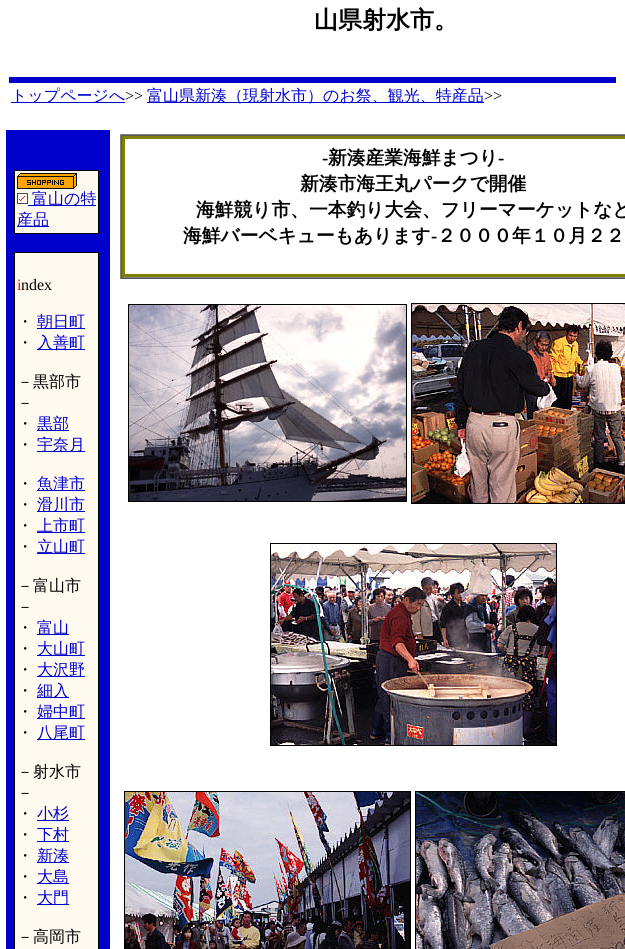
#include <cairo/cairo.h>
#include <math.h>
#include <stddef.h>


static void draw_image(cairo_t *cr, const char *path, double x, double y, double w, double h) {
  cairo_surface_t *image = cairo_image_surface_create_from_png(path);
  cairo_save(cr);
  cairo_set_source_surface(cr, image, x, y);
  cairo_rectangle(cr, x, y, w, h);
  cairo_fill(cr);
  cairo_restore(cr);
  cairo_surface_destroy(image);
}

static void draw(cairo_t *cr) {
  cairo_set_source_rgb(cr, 1, 1, 1);
  cairo_paint(cr);
  cairo_set_source_rgb(cr, 0, 0, 205 / 255.0);
  cairo_rectangle(cr, 9, 77, 607, 6);
  cairo_fill(cr);
  cairo_rectangle(cr, 11, 102, 114, 1);
  cairo_fill(cr);
  cairo_rectangle(cr, 147, 102, 337, 1);
  cairo_fill(cr);
  cairo_rectangle(cr, 6, 130, 104, 819);
  cairo_fill(cr);
  cairo_set_source_rgb(cr, 0, 0, 0);
  cairo_rectangle(cr, 14, 170, 85, 64);
  cairo_fill(cr);
  cairo_set_source_rgb(cr, 1, 250 / 255.0, 240 / 255.0);
  cairo_rectangle(cr, 15, 171, 83, 62);
  cairo_fill(cr);
  draw_image(cr, "images/1.png", 17, 173, 60, 16);
  draw_image(cr, "images/2.png", 17, 193, 11, 11);
  cairo_set_source_rgb(cr, 0, 0, 205 / 255.0);
  cairo_rectangle(cr, 28, 205, 68, 1);
  cairo_fill(cr);
  cairo_rectangle(cr, 17, 226, 32, 1);
  cairo_fill(cr);
  cairo_set_source_rgb(cr, 0, 0, 0);
  cairo_rectangle(cr, 14, 252, 85, 697);
  cairo_fill(cr);
  cairo_set_source_rgb(cr, 1, 250 / 255.0, 240 / 255.0);
  cairo_rectangle(cr, 15, 253, 83, 696);
  cairo_fill(cr);
  cairo_set_source_rgb(cr, 0, 0, 205 / 255.0);
  cairo_rectangle(cr, 37, 328, 48, 1);
  cairo_fill(cr);
  cairo_rectangle(cr, 37, 349, 48, 1);
  cairo_fill(cr);
  cairo_rectangle(cr, 37, 430, 32, 1);
  cairo_fill(cr);
  cairo_rectangle(cr, 37, 451, 48, 1);
  cairo_fill(cr);
  cairo_rectangle(cr, 37, 490, 48, 1);
  cairo_fill(cr);
  cairo_rectangle(cr, 37, 511, 48, 1);
  cairo_fill(cr);
  cairo_rectangle(cr, 37, 532, 48, 1);
  cairo_fill(cr);
  cairo_rectangle(cr, 37, 553, 48, 1);
  cairo_fill(cr);
  cairo_rectangle(cr, 37, 634, 32, 1);
  cairo_fill(cr);
  cairo_rectangle(cr, 37, 655, 48, 1);
  cairo_fill(cr);
  cairo_rectangle(cr, 37, 676, 48, 1);
  cairo_fill(cr);
  cairo_rectangle(cr, 37, 697, 32, 1);
  cairo_fill(cr);
  cairo_rectangle(cr, 37, 718, 48, 1);
  cairo_fill(cr);
  cairo_rectangle(cr, 37, 739, 48, 1);
  cairo_fill(cr);
  cairo_rectangle(cr, 37, 820, 32, 1);
  cairo_fill(cr);
  cairo_rectangle(cr, 37, 841, 32, 1);
  cairo_fill(cr);
  cairo_rectangle(cr, 37, 862, 32, 1);
  cairo_fill(cr);
  cairo_rectangle(cr, 37, 883, 32, 1);
  cairo_fill(cr);
  cairo_rectangle(cr, 37, 904, 32, 1);
  cairo_fill(cr);
  cairo_set_source_rgb(cr, 128 / 255.0, 128 / 255.0, 0);
  cairo_rectangle(cr, 122, 136, 503, 141);
  cairo_fill(cr);
  cairo_set_source_rgb(cr, 128 / 255.0, 128 / 255.0, 128 / 255.0);
  cairo_rectangle(cr, 120, 134, 505, 1);
  cairo_fill(cr);
  cairo_set_source_rgb(cr, 85 / 255.0, 85 / 255.0, 85 / 255.0);
  cairo_rectangle(cr, 120, 278, 505, 1);
  cairo_fill(cr);
  cairo_set_source_rgb(cr, 128 / 255.0, 128 / 255.0, 128 / 255.0);
  cairo_rectangle(cr, 120, 134, 1, 145);
  cairo_fill(cr);
  cairo_set_source_rgb(cr, 85 / 255.0, 85 / 255.0, 85 / 255.0);
  cairo_rectangle(cr, 121, 135, 504, 1);
  cairo_fill(cr);
  cairo_set_source_rgb(cr, 128 / 255.0, 128 / 255.0, 128 / 255.0);
  cairo_rectangle(cr, 121, 277, 504, 1);
  cairo_fill(cr);
  cairo_set_source_rgb(cr, 85 / 255.0, 85 / 255.0, 85 / 255.0);
  cairo_rectangle(cr, 121, 135, 1, 143);
  cairo_fill(cr);
  cairo_set_source_rgb(cr, 1, 1, 1);
  cairo_rectangle(cr, 125, 139, 500, 135);
  cairo_fill(cr);
  cairo_rectangle(cr, 128.5, 304.5, 278, 197);
  cairo_set_source_rgb(cr, 0, 0, 0);
  cairo_set_line_width(cr, 1);
  cairo_stroke(cr);
  draw_image(cr, "images/3.png", 129, 305, 277, 196);
  cairo_rectangle(cr, 411.5, 303.5, 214, 200);
  cairo_stroke(cr);
  draw_image(cr, "images/4.png", 412, 304, 213, 199);
  cairo_rectangle(cr, 270.5, 543.5, 286, 202);
  cairo_stroke(cr);
  draw_image(cr, "images/5.png", 271, 544, 285, 201);
  cairo_rectangle(cr, 124.5, 791.5, 286, 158);
  cairo_stroke(cr);
  draw_image(cr, "images/6.png", 125, 792, 285, 157);
  cairo_rectangle(cr, 415.5, 791.5, 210, 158);
  cairo_stroke(cr);
  draw_image(cr, "images/7.png", 416, 792, 209, 157);
  cairo_select_font_face(cr, "WenQuanYi Zen Hei", CAIRO_FONT_SLANT_NORMAL, CAIRO_FONT_WEIGHT_BOLD);
  cairo_set_font_size(cr, 24);
  cairo_move_to(cr, 314, 28);
  cairo_show_text(cr, "山県射水市。");
  cairo_select_font_face(cr, "WenQuanYi Zen Hei Medium", CAIRO_FONT_SLANT_NORMAL, CAIRO_FONT_WEIGHT_NORMAL);
  cairo_set_font_size(cr, 16);
  cairo_set_source_rgb(cr, 0, 0, 205 / 255.0);
  cairo_move_to(cr, 11, 101);
  cairo_show_text(cr, "トップページへ");
  cairo_select_font_face(cr, "Liberation Serif", CAIRO_FONT_SLANT_NORMAL, CAIRO_FONT_WEIGHT_NORMAL);
  cairo_set_source_rgb(cr, 0, 0, 0);
  cairo_move_to(cr, 125, 101);
  cairo_show_text(cr, ">>");
  cairo_select_font_face(cr, "WenQuanYi Zen Hei Medium", CAIRO_FONT_SLANT_NORMAL, CAIRO_FONT_WEIGHT_NORMAL);
  cairo_set_source_rgb(cr, 0, 0, 205 / 255.0);
  cairo_move_to(cr, 147, 101);
  cairo_show_text(cr, "富山県新湊（現射水市）のお祭、観光、特産品");
  cairo_select_font_face(cr, "Liberation Serif", CAIRO_FONT_SLANT_NORMAL, CAIRO_FONT_WEIGHT_NORMAL);
  cairo_set_source_rgb(cr, 0, 0, 0);
  cairo_move_to(cr, 484, 101);
  cairo_show_text(cr, ">>");
  cairo_select_font_face(cr, "WenQuanYi Zen Hei Medium", CAIRO_FONT_SLANT_NORMAL, CAIRO_FONT_WEIGHT_NORMAL);
  cairo_set_source_rgb(cr, 0, 0, 205 / 255.0);
  cairo_move_to(cr, 32, 204);
  cairo_show_text(cr, "富山の特");
  cairo_move_to(cr, 17, 225);
  cairo_show_text(cr, "産品");
  cairo_select_font_face(cr, "Liberation Serif", CAIRO_FONT_SLANT_NORMAL, CAIRO_FONT_WEIGHT_NORMAL);
  cairo_set_source_rgb(cr, 1, 0, 0);
  cairo_move_to(cr, 17, 290);
  cairo_show_text(cr, "i");
  cairo_set_source_rgb(cr, 0, 0, 0);
  cairo_move_to(cr, 21, 290);
  cairo_show_text(cr, "ndex");
  cairo_select_font_face(cr, "WenQuanYi Zen Hei Medium", CAIRO_FONT_SLANT_NORMAL, CAIRO_FONT_WEIGHT_NORMAL);
  cairo_move_to(cr, 17, 327);
  cairo_show_text(cr, "・");
  cairo_set_source_rgb(cr, 0, 0, 205 / 255.0);
  cairo_move_to(cr, 37, 327);
  cairo_show_text(cr, "朝日町");
  cairo_set_source_rgb(cr, 0, 0, 0);
  cairo_move_to(cr, 17, 348);
  cairo_show_text(cr, "・");
  cairo_set_source_rgb(cr, 0, 0, 205 / 255.0);
  cairo_move_to(cr, 37, 348);
  cairo_show_text(cr, "入善町");
  cairo_set_source_rgb(cr, 0, 0, 0);
  cairo_move_to(cr, 17, 387);
  cairo_show_text(cr, "－黒部市");
  cairo_move_to(cr, 17, 408);
  cairo_show_text(cr, "－");
  cairo_move_to(cr, 17, 429);
  cairo_show_text(cr, "・");
  cairo_set_source_rgb(cr, 0, 0, 205 / 255.0);
  cairo_move_to(cr, 37, 429);
  cairo_show_text(cr, "黒部");
  cairo_set_source_rgb(cr, 0, 0, 0);
  cairo_move_to(cr, 17, 450);
  cairo_show_text(cr, "・");
  cairo_set_source_rgb(cr, 0, 0, 205 / 255.0);
  cairo_move_to(cr, 37, 450);
  cairo_show_text(cr, "宇奈月");
  cairo_set_source_rgb(cr, 0, 0, 0);
  cairo_move_to(cr, 17, 489);
  cairo_show_text(cr, "・");
  cairo_set_source_rgb(cr, 0, 0, 205 / 255.0);
  cairo_move_to(cr, 37, 489);
  cairo_show_text(cr, "魚津市");
  cairo_set_source_rgb(cr, 0, 0, 0);
  cairo_move_to(cr, 17, 510);
  cairo_show_text(cr, "・");
  cairo_set_source_rgb(cr, 0, 0, 205 / 255.0);
  cairo_move_to(cr, 37, 510);
  cairo_show_text(cr, "滑川市");
  cairo_set_source_rgb(cr, 0, 0, 0);
  cairo_move_to(cr, 17, 531);
  cairo_show_text(cr, "・");
  cairo_set_source_rgb(cr, 0, 0, 205 / 255.0);
  cairo_move_to(cr, 37, 531);
  cairo_show_text(cr, "上市町");
  cairo_set_source_rgb(cr, 0, 0, 0);
  cairo_move_to(cr, 17, 552);
  cairo_show_text(cr, "・");
  cairo_set_source_rgb(cr, 0, 0, 205 / 255.0);
  cairo_move_to(cr, 37, 552);
  cairo_show_text(cr, "立山町");
  cairo_set_source_rgb(cr, 0, 0, 0);
  cairo_move_to(cr, 17, 591);
  cairo_show_text(cr, "－富山市");
  cairo_move_to(cr, 17, 612);
  cairo_show_text(cr, "－");
  cairo_move_to(cr, 17, 633);
  cairo_show_text(cr, "・");
  cairo_set_source_rgb(cr, 0, 0, 205 / 255.0);
  cairo_move_to(cr, 37, 633);
  cairo_show_text(cr, "富山");
  cairo_set_source_rgb(cr, 0, 0, 0);
  cairo_move_to(cr, 17, 654);
  cairo_show_text(cr, "・");
  cairo_set_source_rgb(cr, 0, 0, 205 / 255.0);
  cairo_move_to(cr, 37, 654);
  cairo_show_text(cr, "大山町");
  cairo_set_source_rgb(cr, 0, 0, 0);
  cairo_move_to(cr, 17, 675);
  cairo_show_text(cr, "・");
  cairo_set_source_rgb(cr, 0, 0, 205 / 255.0);
  cairo_move_to(cr, 37, 675);
  cairo_show_text(cr, "大沢野");
  cairo_set_source_rgb(cr, 0, 0, 0);
  cairo_move_to(cr, 17, 696);
  cairo_show_text(cr, "・");
  cairo_set_source_rgb(cr, 0, 0, 205 / 255.0);
  cairo_move_to(cr, 37, 696);
  cairo_show_text(cr, "細入");
  cairo_set_source_rgb(cr, 0, 0, 0);
  cairo_move_to(cr, 17, 717);
  cairo_show_text(cr, "・");
  cairo_set_source_rgb(cr, 0, 0, 205 / 255.0);
  cairo_move_to(cr, 37, 717);
  cairo_show_text(cr, "婦中町");
  cairo_set_source_rgb(cr, 0, 0, 0);
  cairo_move_to(cr, 17, 738);
  cairo_show_text(cr, "・");
  cairo_set_source_rgb(cr, 0, 0, 205 / 255.0);
  cairo_move_to(cr, 37, 738);
  cairo_show_text(cr, "八尾町");
  cairo_set_source_rgb(cr, 0, 0, 0);
  cairo_move_to(cr, 17, 777);
  cairo_show_text(cr, "－射水市");
  cairo_move_to(cr, 17, 798);
  cairo_show_text(cr, "－");
  cairo_move_to(cr, 17, 819);
  cairo_show_text(cr, "・");
  cairo_set_source_rgb(cr, 0, 0, 205 / 255.0);
  cairo_move_to(cr, 37, 819);
  cairo_show_text(cr, "小杉");
  cairo_set_source_rgb(cr, 0, 0, 0);
  cairo_move_to(cr, 17, 840);
  cairo_show_text(cr, "・");
  cairo_set_source_rgb(cr, 0, 0, 205 / 255.0);
  cairo_move_to(cr, 37, 840);
  cairo_show_text(cr, "下村");
  cairo_set_source_rgb(cr, 0, 0, 0);
  cairo_move_to(cr, 17, 861);
  cairo_show_text(cr, "・");
  cairo_set_source_rgb(cr, 0, 0, 205 / 255.0);
  cairo_move_to(cr, 37, 861);
  cairo_show_text(cr, "新湊");
  cairo_set_source_rgb(cr, 0, 0, 0);
  cairo_move_to(cr, 17, 882);
  cairo_show_text(cr, "・");
  cairo_set_source_rgb(cr, 0, 0, 205 / 255.0);
  cairo_move_to(cr, 37, 882);
  cairo_show_text(cr, "大島");
  cairo_set_source_rgb(cr, 0, 0, 0);
  cairo_move_to(cr, 17, 903);
  cairo_show_text(cr, "・");
  cairo_set_source_rgb(cr, 0, 0, 205 / 255.0);
  cairo_move_to(cr, 37, 903);
  cairo_show_text(cr, "大門");
  cairo_set_source_rgb(cr, 0, 0, 0);
  cairo_move_to(cr, 17, 942);
  cairo_show_text(cr, "－高岡市");
  cairo_select_font_face(cr, "Liberation Serif", CAIRO_FONT_SLANT_NORMAL, CAIRO_FONT_WEIGHT_BOLD);
  cairo_set_font_size(cr, 18.75);
  cairo_move_to(cr, 322, 164);
  cairo_show_text(cr, "-");
  cairo_select_font_face(cr, "WenQuanYi Zen Hei", CAIRO_FONT_SLANT_NORMAL, CAIRO_FONT_WEIGHT_BOLD);
  cairo_move_to(cr, 328, 164);
  cairo_show_text(cr, "新湊産業海鮮まつり");
  cairo_select_font_face(cr, "Liberation Serif", CAIRO_FONT_SLANT_NORMAL, CAIRO_FONT_WEIGHT_BOLD);
  cairo_move_to(cr, 498, 164);
  cairo_show_text(cr, "-");
  cairo_select_font_face(cr, "WenQuanYi Zen Hei", CAIRO_FONT_SLANT_NORMAL, CAIRO_FONT_WEIGHT_BOLD);
  cairo_move_to(cr, 300, 190);
  cairo_show_text(cr, "新湊市海王丸パークで開催");
  cairo_move_to(cr, 196, 216);
  cairo_show_text(cr, "海鮮競り市、一本釣り大会、フリーマーケットなど");
  cairo_move_to(cr, 183, 242);
  cairo_show_text(cr, "海鮮バーベキューもあります");
  cairo_select_font_face(cr, "Liberation Serif", CAIRO_FONT_SLANT_NORMAL, CAIRO_FONT_WEIGHT_BOLD);
  cairo_move_to(cr, 431, 242);
  cairo_show_text(cr, "-");
  cairo_select_font_face(cr, "WenQuanYi Zen Hei", CAIRO_FONT_SLANT_NORMAL, CAIRO_FONT_WEIGHT_BOLD);
  cairo_move_to(cr, 437, 242);
  cairo_show_text(cr, "２０００年１０月２２");
}

int main(void) {
  cairo_surface_t *surface = cairo_image_surface_create(CAIRO_FORMAT_RGB24, 625, 949);
  cairo_t *cr = cairo_create(surface);
  cairo_font_options_t *options = cairo_font_options_create();
  cairo_font_options_set_hint_metrics(options, CAIRO_HINT_METRICS_OFF);
  cairo_font_options_set_hint_style(options, CAIRO_HINT_STYLE_NONE);
  cairo_set_font_options(cr, options);
  cairo_set_miter_limit(cr, 4);
  draw(cr);
  cairo_surface_write_to_png(surface, "out.png");
  cairo_font_options_destroy(options);
  cairo_destroy(cr);
  cairo_surface_destroy(surface);
  return 0;
}
